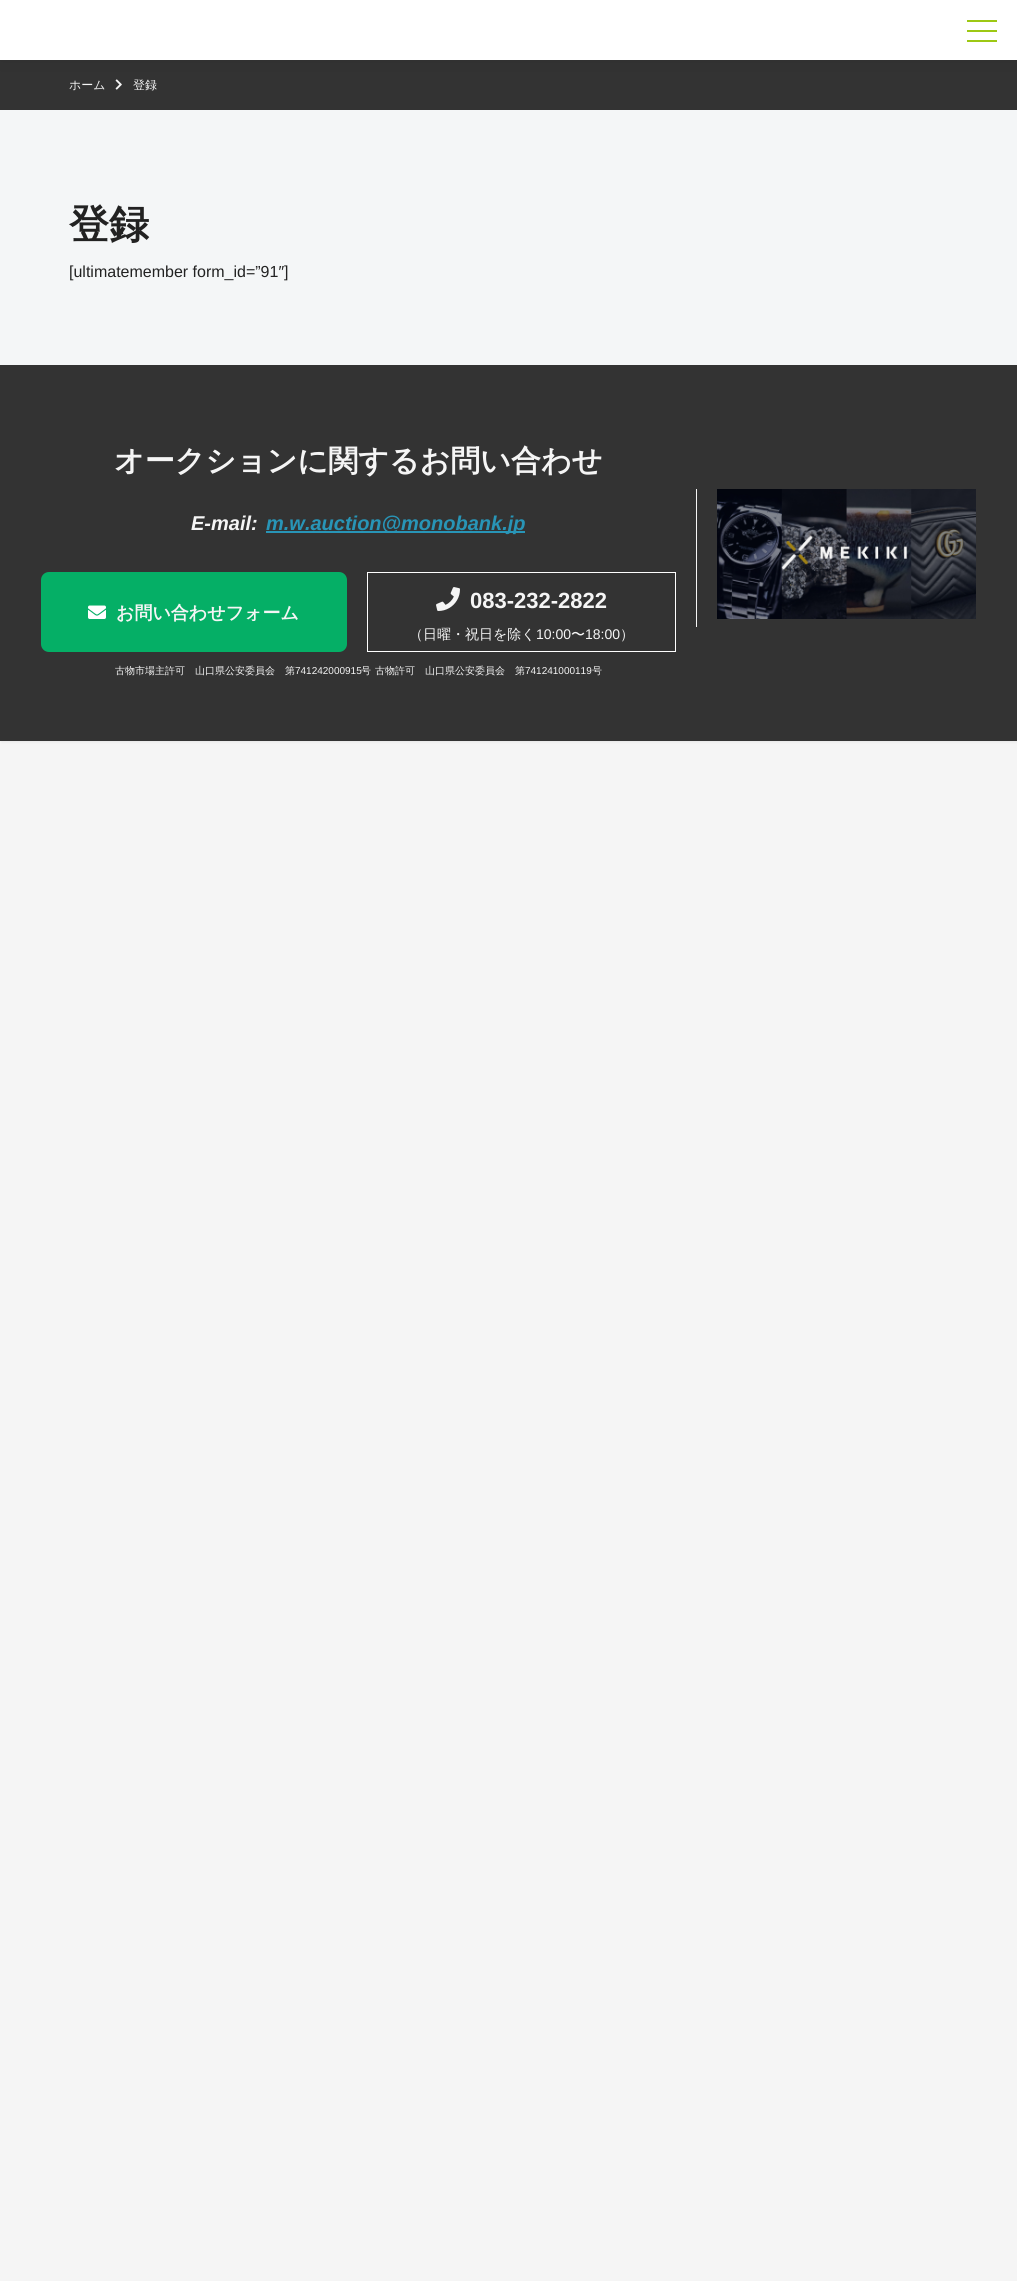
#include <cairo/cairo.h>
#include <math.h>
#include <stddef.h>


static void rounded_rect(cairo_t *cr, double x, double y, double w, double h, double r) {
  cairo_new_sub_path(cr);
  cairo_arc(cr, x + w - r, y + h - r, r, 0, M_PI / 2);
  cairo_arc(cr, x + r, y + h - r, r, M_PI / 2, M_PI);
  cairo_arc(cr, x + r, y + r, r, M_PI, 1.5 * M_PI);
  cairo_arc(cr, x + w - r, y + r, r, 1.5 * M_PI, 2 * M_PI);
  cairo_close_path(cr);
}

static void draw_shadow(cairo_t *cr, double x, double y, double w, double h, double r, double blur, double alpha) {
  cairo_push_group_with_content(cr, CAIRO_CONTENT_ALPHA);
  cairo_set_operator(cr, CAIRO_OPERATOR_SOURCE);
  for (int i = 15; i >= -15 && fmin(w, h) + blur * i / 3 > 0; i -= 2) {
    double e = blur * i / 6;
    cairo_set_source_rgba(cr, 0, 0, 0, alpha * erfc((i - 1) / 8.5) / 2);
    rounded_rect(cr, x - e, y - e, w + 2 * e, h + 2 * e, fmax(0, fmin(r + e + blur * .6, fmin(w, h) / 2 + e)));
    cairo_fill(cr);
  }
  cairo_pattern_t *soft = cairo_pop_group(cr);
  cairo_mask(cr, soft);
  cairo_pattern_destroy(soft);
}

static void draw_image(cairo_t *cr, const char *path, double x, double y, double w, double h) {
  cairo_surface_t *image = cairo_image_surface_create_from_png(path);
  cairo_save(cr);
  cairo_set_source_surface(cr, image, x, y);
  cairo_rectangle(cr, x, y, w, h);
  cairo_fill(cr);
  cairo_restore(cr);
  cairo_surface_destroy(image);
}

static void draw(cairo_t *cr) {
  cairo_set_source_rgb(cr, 245 / 255.0, 245 / 255.0, 245 / 255.0);
  cairo_paint(cr);
  cairo_set_source_rgb(cr, 0, 0, 0);
  draw_shadow(cr, 1, 0, 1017, 741, 0, 1.5, 0.1);
  cairo_set_source_rgb(cr, 51 / 255.0, 51 / 255.0, 51 / 255.0);
  cairo_rectangle(cr, 0, 60, 1017, 50);
  cairo_fill(cr);
  draw_image(cr, "images/1.png", 115, 79, 7, 11);
  cairo_set_source_rgb(cr, 0, 0, 0);
  draw_shadow(cr, 0, 1, 1017, 60, 0, 10, 0.08);
  cairo_set_source_rgb(cr, 1, 1, 1);
  cairo_rectangle(cr, 0, 0, 1017, 60);
  cairo_fill(cr);
  cairo_set_source_rgb(cr, 157 / 255.0, 200 / 255.0, 20 / 255.0);
  cairo_rectangle(cr, 967, 20, 30, 2);
  cairo_fill(cr);
  cairo_rectangle(cr, 967, 30, 30, 2);
  cairo_fill(cr);
  cairo_rectangle(cr, 967, 40, 30, 2);
  cairo_fill(cr);
  cairo_set_source_rgb(cr, 244 / 255.0, 246 / 255.0, 247 / 255.0);
  cairo_rectangle(cr, 0, 110, 1017, 255);
  cairo_fill(cr);
  cairo_set_source_rgb(cr, 51 / 255.0, 51 / 255.0, 51 / 255.0);
  cairo_rectangle(cr, 0, 365, 1017, 376);
  cairo_fill(cr);
  cairo_set_source_rgb(cr, 40 / 255.0, 149 / 255.0, 183 / 255.0);
  cairo_rectangle(cr, 266, 531, 259, 2);
  cairo_fill(cr);
  cairo_set_source_rgb(cr, 5 / 255.0, 175 / 255.0, 102 / 255.0);
  rounded_rect(cr, 41, 572, 306, 80, 8);
  cairo_fill(cr);
  draw_image(cr, "images/2.png", 88, 605, 18, 14);
  cairo_rectangle(cr, 367.5, 572.5, 308, 79);
  cairo_set_source_rgb(cr, 1, 1, 1);
  cairo_set_line_width(cr, 1);
  cairo_stroke(cr);
  draw_image(cr, "images/3.png", 436, 587, 24, 24);
  cairo_set_source_rgb(cr, 245 / 255.0, 245 / 255.0, 245 / 255.0);
  cairo_rectangle(cr, 696, 489, 1, 138);
  cairo_fill(cr);
  draw_image(cr, "images/4.png", 717, 489, 259, 130);
  cairo_select_font_face(cr, "WenQuanYi Zen Hei Medium", CAIRO_FONT_SLANT_NORMAL, CAIRO_FONT_WEIGHT_NORMAL);
  cairo_set_font_size(cr, 12);
  cairo_move_to(cr, 69, 89);
  cairo_show_text(cr, "ホーム");
  cairo_move_to(cr, 133, 89);
  cairo_show_text(cr, "登録");
  cairo_select_font_face(cr, "WenQuanYi Zen Hei", CAIRO_FONT_SLANT_NORMAL, CAIRO_FONT_WEIGHT_BOLD);
  cairo_set_font_size(cr, 40);
  cairo_set_source_rgb(cr, 34 / 255.0, 34 / 255.0, 34 / 255.0);
  cairo_move_to(cr, 69, 238);
  cairo_show_text(cr, "登録");
  cairo_select_font_face(cr, "Liberation Sans", CAIRO_FONT_SLANT_NORMAL, CAIRO_FONT_WEIGHT_NORMAL);
  cairo_set_font_size(cr, 16);
  cairo_move_to(cr, 69, 277);
  cairo_show_text(cr, "[ultimatemember form_id=”91″]");
  cairo_select_font_face(cr, "WenQuanYi Zen Hei", CAIRO_FONT_SLANT_NORMAL, CAIRO_FONT_WEIGHT_BOLD);
  cairo_set_font_size(cr, 30);
  cairo_set_source_rgb(cr, 245 / 255.0, 245 / 255.0, 245 / 255.0);
  cairo_move_to(cr, 114, 471);
  cairo_show_text(cr, "オークションに関するお問い合わせ");
  cairo_select_font_face(cr, "Liberation Sans", CAIRO_FONT_SLANT_ITALIC, CAIRO_FONT_WEIGHT_BOLD);
  cairo_set_font_size(cr, 20);
  cairo_move_to(cr, 191, 530);
  cairo_show_text(cr, "E-mail:");
  cairo_set_source_rgb(cr, 40 / 255.0, 149 / 255.0, 183 / 255.0);
  cairo_move_to(cr, 266, 530);
  cairo_show_text(cr, "m.w.auction@monobank.jp");
  cairo_select_font_face(cr, "WenQuanYi Zen Hei", CAIRO_FONT_SLANT_NORMAL, CAIRO_FONT_WEIGHT_BOLD);
  cairo_set_font_size(cr, 18);
  cairo_set_source_rgb(cr, 245 / 255.0, 245 / 255.0, 245 / 255.0);
  cairo_move_to(cr, 116, 619);
  cairo_show_text(cr, "お問い合わせフォーム");
  cairo_select_font_face(cr, "Liberation Sans", CAIRO_FONT_SLANT_NORMAL, CAIRO_FONT_WEIGHT_BOLD);
  cairo_set_font_size(cr, 22);
  cairo_move_to(cr, 470, 608);
  cairo_show_text(cr, "083-232-2822");
  cairo_select_font_face(cr, "WenQuanYi Zen Hei Medium", CAIRO_FONT_SLANT_NORMAL, CAIRO_FONT_WEIGHT_NORMAL);
  cairo_set_font_size(cr, 14);
  cairo_move_to(cr, 409, 639);
  cairo_show_text(cr, "（日曜・祝日を除く");
  cairo_select_font_face(cr, "Liberation Sans", CAIRO_FONT_SLANT_NORMAL, CAIRO_FONT_WEIGHT_NORMAL);
  cairo_move_to(cr, 536, 639);
  cairo_show_text(cr, "10:00");
  cairo_select_font_face(cr, "WenQuanYi Zen Hei Medium", CAIRO_FONT_SLANT_NORMAL, CAIRO_FONT_WEIGHT_NORMAL);
  cairo_move_to(cr, 571, 639);
  cairo_show_text(cr, "〜");
  cairo_select_font_face(cr, "Liberation Sans", CAIRO_FONT_SLANT_NORMAL, CAIRO_FONT_WEIGHT_NORMAL);
  cairo_move_to(cr, 585, 639);
  cairo_show_text(cr, "18:00");
  cairo_select_font_face(cr, "WenQuanYi Zen Hei Medium", CAIRO_FONT_SLANT_NORMAL, CAIRO_FONT_WEIGHT_NORMAL);
  cairo_move_to(cr, 620, 639);
  cairo_show_text(cr, "）");
  cairo_set_font_size(cr, 10);
  cairo_move_to(cr, 115, 674);
  cairo_show_text(cr, "古物市場主許可　山口県公安委員会　第");
  cairo_select_font_face(cr, "Liberation Sans", CAIRO_FONT_SLANT_NORMAL, CAIRO_FONT_WEIGHT_NORMAL);
  cairo_move_to(cr, 295, 674);
  cairo_show_text(cr, "741242000915");
  cairo_select_font_face(cr, "WenQuanYi Zen Hei Medium", CAIRO_FONT_SLANT_NORMAL, CAIRO_FONT_WEIGHT_NORMAL);
  cairo_move_to(cr, 361, 674);
  cairo_show_text(cr, "号");
  cairo_move_to(cr, 375, 674);
  cairo_show_text(cr, "古物許可　山口県公安委員会　第");
  cairo_select_font_face(cr, "Liberation Sans", CAIRO_FONT_SLANT_NORMAL, CAIRO_FONT_WEIGHT_NORMAL);
  cairo_move_to(cr, 525, 674);
  cairo_show_text(cr, "741241000119");
  cairo_select_font_face(cr, "WenQuanYi Zen Hei Medium", CAIRO_FONT_SLANT_NORMAL, CAIRO_FONT_WEIGHT_NORMAL);
  cairo_move_to(cr, 592, 674);
  cairo_show_text(cr, "号");
}

int main(void) {
  cairo_surface_t *surface = cairo_image_surface_create(CAIRO_FORMAT_RGB24, 1017, 2281);
  cairo_t *cr = cairo_create(surface);
  cairo_font_options_t *options = cairo_font_options_create();
  cairo_font_options_set_hint_metrics(options, CAIRO_HINT_METRICS_OFF);
  cairo_font_options_set_hint_style(options, CAIRO_HINT_STYLE_NONE);
  cairo_set_font_options(cr, options);
  cairo_set_miter_limit(cr, 4);
  draw(cr);
  cairo_surface_write_to_png(surface, "out.png");
  cairo_font_options_destroy(options);
  cairo_destroy(cr);
  cairo_surface_destroy(surface);
  return 0;
}
